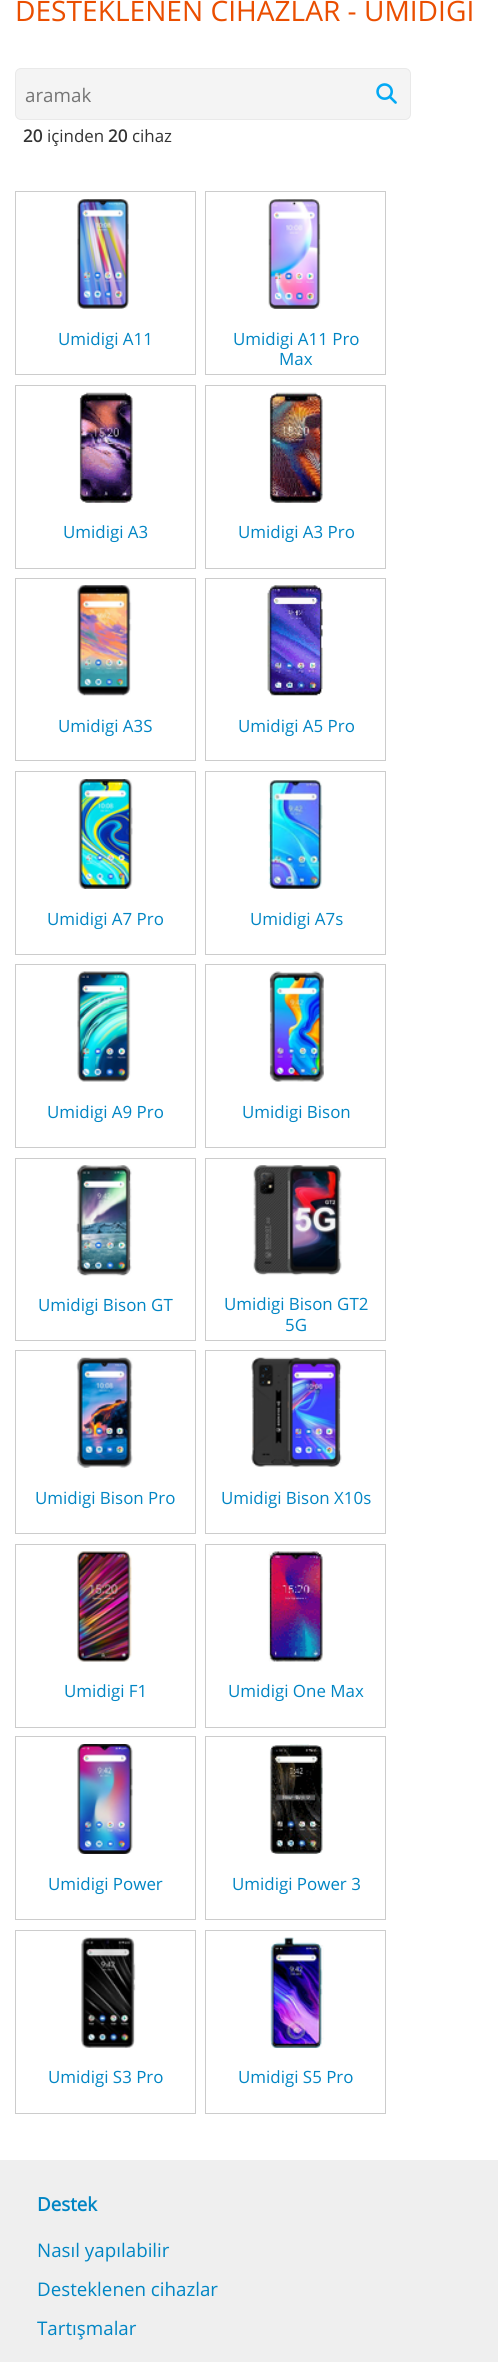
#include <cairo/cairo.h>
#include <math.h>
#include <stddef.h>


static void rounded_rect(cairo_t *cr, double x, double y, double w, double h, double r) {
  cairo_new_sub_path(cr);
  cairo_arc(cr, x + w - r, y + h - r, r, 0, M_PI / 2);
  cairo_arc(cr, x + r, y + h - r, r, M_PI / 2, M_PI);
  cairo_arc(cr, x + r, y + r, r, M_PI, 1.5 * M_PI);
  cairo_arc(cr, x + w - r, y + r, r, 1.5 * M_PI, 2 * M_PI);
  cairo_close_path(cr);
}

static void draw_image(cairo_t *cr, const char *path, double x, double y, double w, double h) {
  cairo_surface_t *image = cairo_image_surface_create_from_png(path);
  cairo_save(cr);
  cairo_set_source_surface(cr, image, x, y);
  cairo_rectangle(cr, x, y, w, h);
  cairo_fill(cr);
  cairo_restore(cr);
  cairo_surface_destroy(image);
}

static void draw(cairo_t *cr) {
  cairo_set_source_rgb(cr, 1, 1, 1);
  cairo_paint(cr);
  cairo_set_source_rgb(cr, 244 / 255.0, 244 / 255.0, 244 / 255.0);
  rounded_rect(cr, 15.5, 68.5, 395, 51, 5.5);
  cairo_fill_preserve(cr);
  cairo_set_source_rgb(cr, 233 / 255.0, 233 / 255.0, 233 / 255.0);
  cairo_set_line_width(cr, 1);
  cairo_stroke(cr);
  draw_image(cr, "images/1.png", 376, 83, 21, 21);
  cairo_rectangle(cr, 15.5, 191.5, 180, 183);
  cairo_set_source_rgb(cr, 204 / 255.0, 204 / 255.0, 204 / 255.0);
  cairo_stroke(cr);
  draw_image(cr, "images/2.png", 77, 199, 52, 110);
  cairo_rectangle(cr, 205.5, 191.5, 180, 183);
  cairo_stroke(cr);
  draw_image(cr, "images/3.png", 268, 199, 53, 110);
  cairo_rectangle(cr, 15.5, 385.5, 180, 183);
  cairo_stroke(cr);
  draw_image(cr, "images/4.png", 79, 392, 54, 111);
  cairo_rectangle(cr, 205.5, 385.5, 180, 183);
  cairo_stroke(cr);
  draw_image(cr, "images/5.png", 269, 392, 54, 111);
  cairo_rectangle(cr, 15.5, 578.5, 180, 182);
  cairo_stroke(cr);
  draw_image(cr, "images/6.png", 77, 585, 55, 111);
  cairo_rectangle(cr, 205.5, 578.5, 180, 182);
  cairo_stroke(cr);
  draw_image(cr, "images/7.png", 267, 585, 56, 111);
  cairo_rectangle(cr, 15.5, 771.5, 180, 183);
  cairo_stroke(cr);
  draw_image(cr, "images/8.png", 78, 779, 55, 110);
  cairo_rectangle(cr, 205.5, 771.5, 180, 183);
  cairo_stroke(cr);
  draw_image(cr, "images/9.png", 268, 780, 55, 109);
  cairo_rectangle(cr, 15.5, 964.5, 180, 183);
  cairo_stroke(cr);
  draw_image(cr, "images/10.png", 77, 971, 54, 111);
  cairo_rectangle(cr, 205.5, 964.5, 180, 183);
  cairo_stroke(cr);
  draw_image(cr, "images/11.png", 269, 971, 55, 111);
  cairo_rectangle(cr, 15.5, 1158.5, 180, 182);
  cairo_stroke(cr);
  draw_image(cr, "images/12.png", 76, 1165, 56, 111);
  cairo_rectangle(cr, 205.5, 1158.5, 180, 182);
  cairo_stroke(cr);
  draw_image(cr, "images/13.png", 253, 1165, 89, 111);
  cairo_rectangle(cr, 15.5, 1350.5, 180, 183);
  cairo_stroke(cr);
  draw_image(cr, "images/14.png", 76, 1357, 57, 111);
  cairo_rectangle(cr, 205.5, 1350.5, 180, 183);
  cairo_stroke(cr);
  draw_image(cr, "images/15.png", 251, 1357, 91, 111);
  cairo_rectangle(cr, 15.5, 1544.5, 180, 183);
  cairo_stroke(cr);
  draw_image(cr, "images/16.png", 77, 1551, 55, 111);
  cairo_rectangle(cr, 205.5, 1544.5, 180, 183);
  cairo_stroke(cr);
  draw_image(cr, "images/17.png", 268, 1551, 55, 111);
  cairo_rectangle(cr, 15.5, 1736.5, 180, 183);
  cairo_stroke(cr);
  draw_image(cr, "images/18.png", 77, 1744, 56, 110);
  cairo_rectangle(cr, 205.5, 1736.5, 180, 183);
  cairo_stroke(cr);
  draw_image(cr, "images/19.png", 269, 1744, 54, 110);
  cairo_rectangle(cr, 15.5, 1930.5, 180, 183);
  cairo_stroke(cr);
  draw_image(cr, "images/20.png", 81, 1937, 55, 111);
  cairo_rectangle(cr, 205.5, 1930.5, 180, 183);
  cairo_stroke(cr);
  draw_image(cr, "images/21.png", 270, 1937, 54, 111);
  cairo_set_source_rgb(cr, 239 / 255.0, 239 / 255.0, 239 / 255.0);
  cairo_rectangle(cr, 0, 2160, 498, 202);
  cairo_fill(cr);
  cairo_select_font_face(cr, "Open Sans", CAIRO_FONT_SLANT_NORMAL, CAIRO_FONT_WEIGHT_NORMAL);
  cairo_set_font_size(cr, 28.1);
  cairo_set_source_rgb(cr, 234 / 255.0, 78 / 255.0, 0);
  cairo_move_to(cr, 15, 21);
  cairo_show_text(cr, "DESTEKLENEN CİHAZLAR - UMİDİGİ");
  cairo_set_font_size(cr, 18.75);
  cairo_set_source_rgb(cr, 117 / 255.0, 117 / 255.0, 117 / 255.0);
  cairo_move_to(cr, 25, 102);
  cairo_show_text(cr, "aramak");
  cairo_select_font_face(cr, "Open Sans", CAIRO_FONT_SLANT_NORMAL, CAIRO_FONT_WEIGHT_BOLD);
  cairo_set_font_size(cr, 16.9);
  cairo_set_source_rgb(cr, 51 / 255.0, 51 / 255.0, 51 / 255.0);
  cairo_move_to(cr, 23, 142);
  cairo_show_text(cr, "20");
  cairo_select_font_face(cr, "Open Sans", CAIRO_FONT_SLANT_NORMAL, CAIRO_FONT_WEIGHT_NORMAL);
  cairo_move_to(cr, 47, 142);
  cairo_show_text(cr, "içinden");
  cairo_select_font_face(cr, "Open Sans", CAIRO_FONT_SLANT_NORMAL, CAIRO_FONT_WEIGHT_BOLD);
  cairo_move_to(cr, 108, 142);
  cairo_show_text(cr, "20");
  cairo_select_font_face(cr, "Open Sans", CAIRO_FONT_SLANT_NORMAL, CAIRO_FONT_WEIGHT_NORMAL);
  cairo_move_to(cr, 132, 142);
  cairo_show_text(cr, "cihaz");
  cairo_set_source_rgb(cr, 0, 133 / 255.0, 196 / 255.0);
  cairo_move_to(cr, 58, 345);
  cairo_show_text(cr, "Umidigi A11");
  cairo_move_to(cr, 233, 345);
  cairo_show_text(cr, "Umidigi A11 Pro");
  cairo_move_to(cr, 279, 365);
  cairo_show_text(cr, "Max");
  cairo_move_to(cr, 63, 538);
  cairo_show_text(cr, "Umidigi A3");
  cairo_move_to(cr, 238, 538);
  cairo_show_text(cr, "Umidigi A3 Pro");
  cairo_move_to(cr, 58, 732);
  cairo_show_text(cr, "Umidigi A3S");
  cairo_move_to(cr, 238, 732);
  cairo_show_text(cr, "Umidigi A5 Pro");
  cairo_move_to(cr, 47, 925);
  cairo_show_text(cr, "Umidigi A7 Pro");
  cairo_move_to(cr, 250, 925);
  cairo_show_text(cr, "Umidigi A7s");
  cairo_move_to(cr, 47, 1118);
  cairo_show_text(cr, "Umidigi A9 Pro");
  cairo_move_to(cr, 242, 1118);
  cairo_show_text(cr, "Umidigi Bison");
  cairo_move_to(cr, 38, 1311);
  cairo_show_text(cr, "Umidigi Bison GT");
  cairo_move_to(cr, 224, 1310);
  cairo_show_text(cr, "Umidigi Bison GT2");
  cairo_move_to(cr, 285, 1331);
  cairo_show_text(cr, "5G");
  cairo_move_to(cr, 35, 1504);
  cairo_show_text(cr, "Umidigi Bison Pro");
  cairo_move_to(cr, 221, 1504);
  cairo_show_text(cr, "Umidigi Bison X10s");
  cairo_move_to(cr, 64, 1697);
  cairo_show_text(cr, "Umidigi F1");
  cairo_move_to(cr, 228, 1697);
  cairo_show_text(cr, "Umidigi One Max");
  cairo_move_to(cr, 48, 1890);
  cairo_show_text(cr, "Umidigi Power");
  cairo_move_to(cr, 232, 1890);
  cairo_show_text(cr, "Umidigi Power 3");
  cairo_move_to(cr, 48, 2083);
  cairo_show_text(cr, "Umidigi S3 Pro");
  cairo_move_to(cr, 238, 2083);
  cairo_show_text(cr, "Umidigi S5 Pro");
  cairo_select_font_face(cr, "Open Sans", CAIRO_FONT_SLANT_NORMAL, CAIRO_FONT_WEIGHT_BOLD);
  cairo_set_font_size(cr, 18.75);
  cairo_move_to(cr, 37, 2211);
  cairo_show_text(cr, "Destek");
  cairo_select_font_face(cr, "Open Sans", CAIRO_FONT_SLANT_NORMAL, CAIRO_FONT_WEIGHT_NORMAL);
  cairo_move_to(cr, 37, 2257);
  cairo_show_text(cr, "Nasıl yapılabilir");
  cairo_move_to(cr, 37, 2296);
  cairo_show_text(cr, "Desteklenen cihazlar");
  cairo_move_to(cr, 37, 2335);
  cairo_show_text(cr, "Tartışmalar");
}

int main(void) {
  cairo_surface_t *surface = cairo_image_surface_create(CAIRO_FORMAT_RGB24, 498, 2362);
  cairo_t *cr = cairo_create(surface);
  cairo_font_options_t *options = cairo_font_options_create();
  cairo_font_options_set_hint_metrics(options, CAIRO_HINT_METRICS_OFF);
  cairo_font_options_set_hint_style(options, CAIRO_HINT_STYLE_NONE);
  cairo_set_font_options(cr, options);
  cairo_set_miter_limit(cr, 4);
  draw(cr);
  cairo_surface_write_to_png(surface, "out.png");
  cairo_font_options_destroy(options);
  cairo_destroy(cr);
  cairo_surface_destroy(surface);
  return 0;
}
